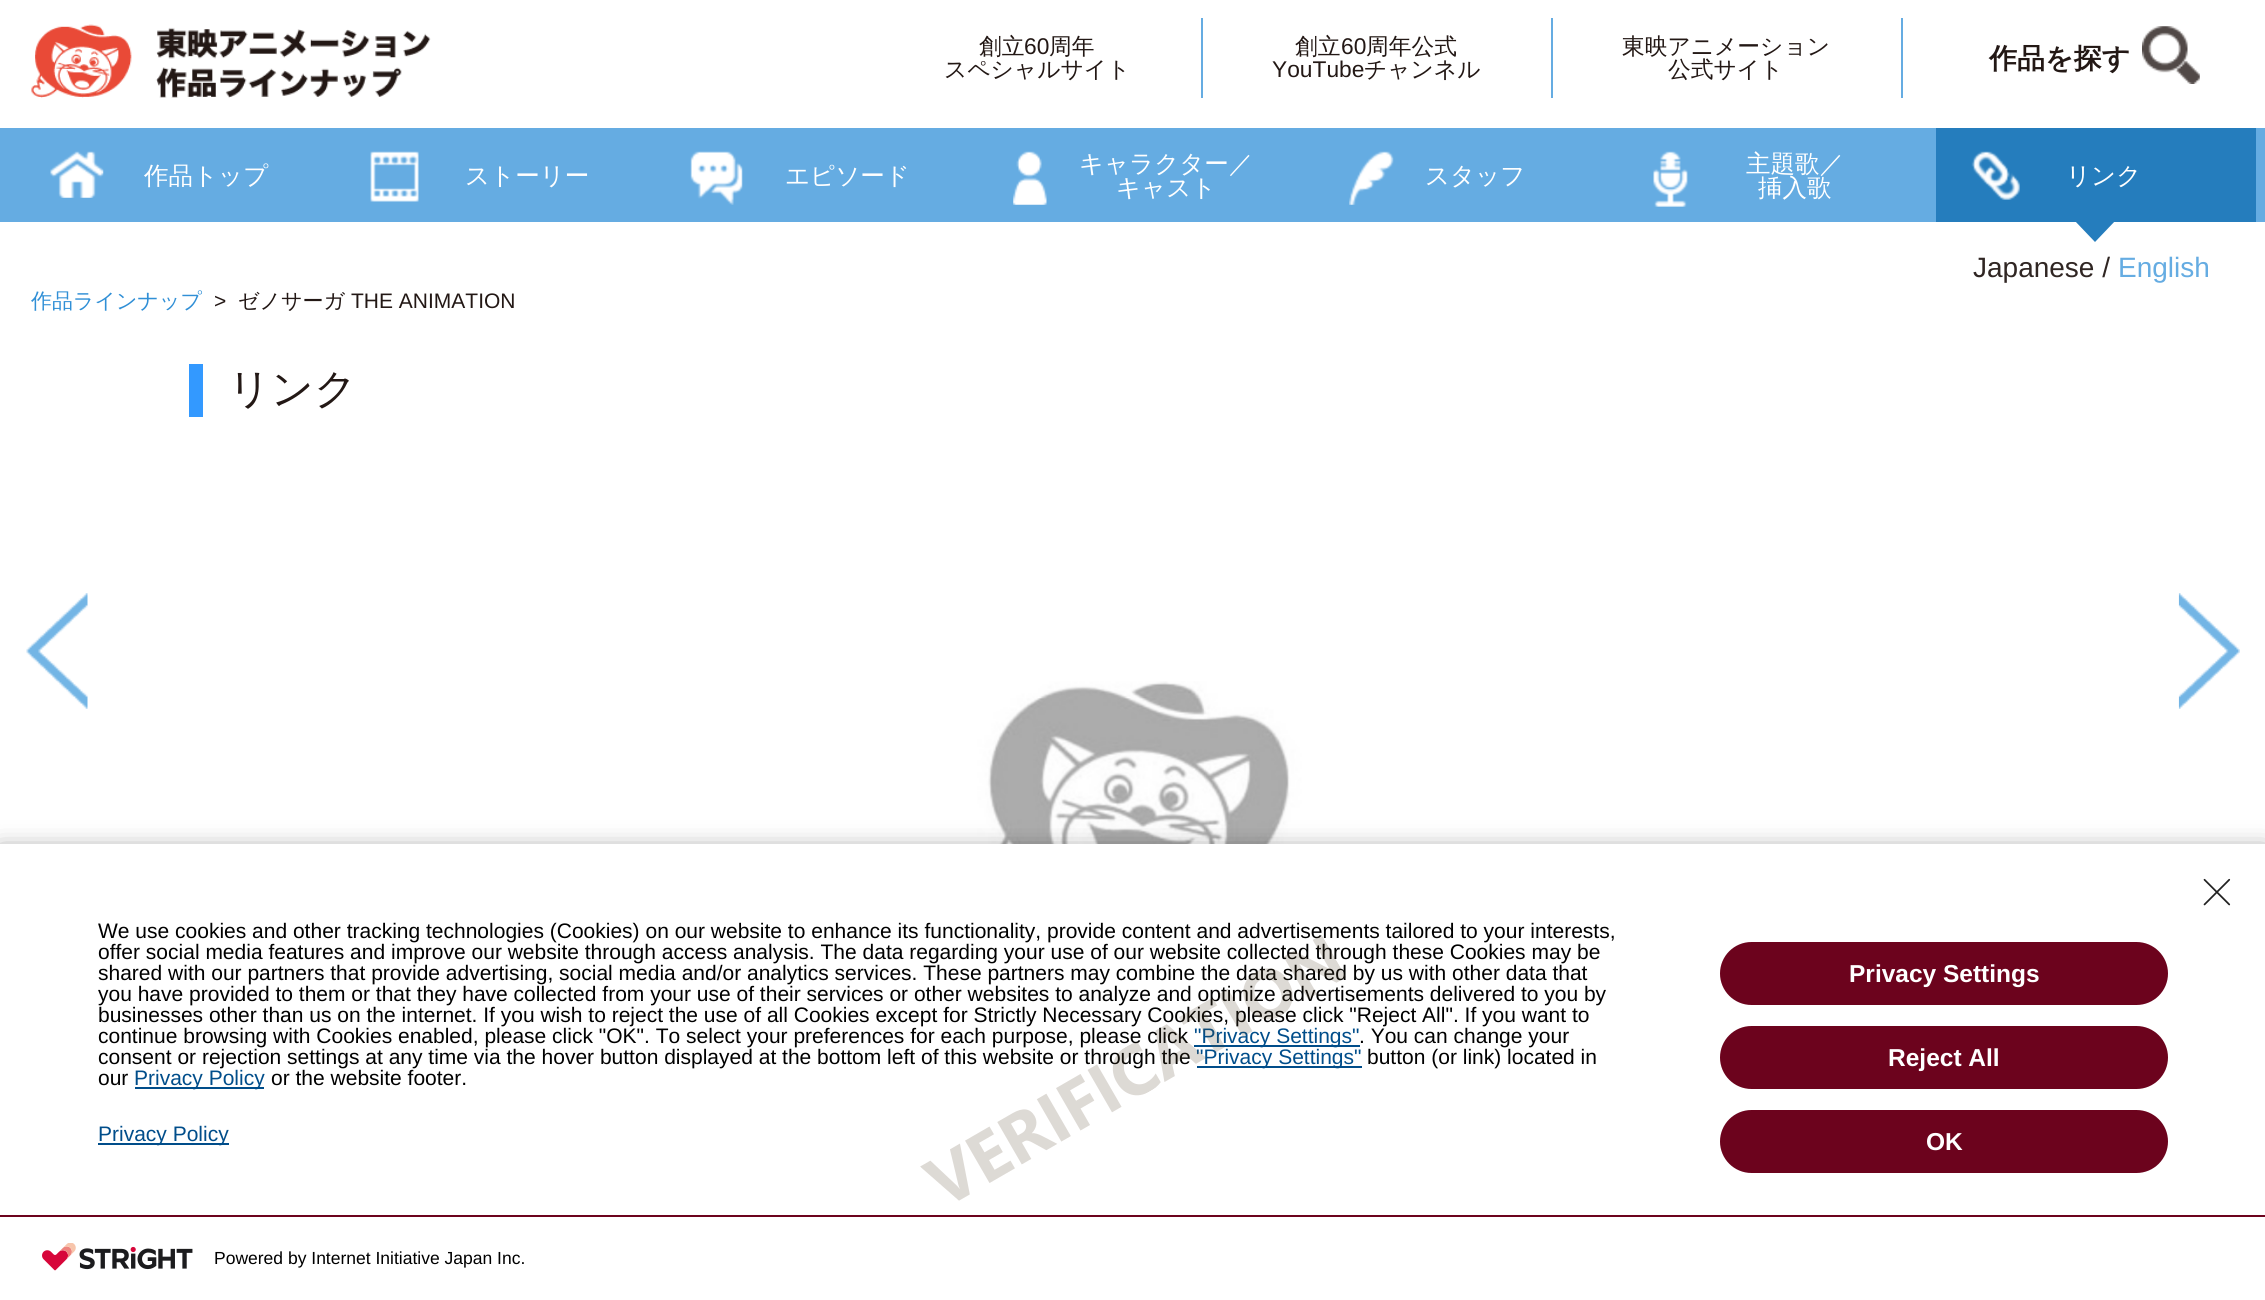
#include <cairo/cairo.h>
#include <math.h>
#include <stddef.h>


static void rounded_rect(cairo_t *cr, double x, double y, double w, double h, double r) {
  cairo_new_sub_path(cr);
  cairo_arc(cr, x + w - r, y + h - r, r, 0, M_PI / 2);
  cairo_arc(cr, x + r, y + h - r, r, M_PI / 2, M_PI);
  cairo_arc(cr, x + r, y + r, r, M_PI, 1.5 * M_PI);
  cairo_arc(cr, x + w - r, y + r, r, 1.5 * M_PI, 2 * M_PI);
  cairo_close_path(cr);
}

static void draw_shadow(cairo_t *cr, double x, double y, double w, double h, double r, double blur, double alpha) {
  cairo_push_group_with_content(cr, CAIRO_CONTENT_ALPHA);
  cairo_set_operator(cr, CAIRO_OPERATOR_SOURCE);
  for (int i = 15; i >= -15 && fmin(w, h) + blur * i / 3 > 0; i -= 2) {
    double e = blur * i / 6;
    cairo_set_source_rgba(cr, 0, 0, 0, alpha * erfc((i - 1) / 8.5) / 2);
    rounded_rect(cr, x - e, y - e, w + 2 * e, h + 2 * e, fmax(0, fmin(r + e + blur * .6, fmin(w, h) / 2 + e)));
    cairo_fill(cr);
  }
  cairo_pattern_t *soft = cairo_pop_group(cr);
  cairo_mask(cr, soft);
  cairo_pattern_destroy(soft);
}

static void draw_image(cairo_t *cr, const char *path, double x, double y, double w, double h) {
  cairo_surface_t *image = cairo_image_surface_create_from_png(path);
  cairo_save(cr);
  cairo_set_source_surface(cr, image, x, y);
  cairo_rectangle(cr, x, y, w, h);
  cairo_fill(cr);
  cairo_restore(cr);
  cairo_surface_destroy(image);
}

static void draw(cairo_t *cr) {
  cairo_set_source_rgb(cr, 1, 1, 1);
  cairo_paint(cr);
  draw_image(cr, "images/1.png", 31, 24, 400, 74);
  cairo_set_source_rgb(cr, 101 / 255.0, 172 / 255.0, 226 / 255.0);
  cairo_rectangle(cr, 1201, 18, 2, 80);
  cairo_fill(cr);
  cairo_rectangle(cr, 1551, 18, 2, 80);
  cairo_fill(cr);
  cairo_rectangle(cr, 1901, 18, 2, 80);
  cairo_fill(cr);
  draw_image(cr, "images/2.png", 2142, 26, 58, 58);
  cairo_rectangle(cr, 0, 128, 2265, 94);
  cairo_fill(cr);
  draw_image(cr, "images/3.png", 50, 151, 54, 47);
  draw_image(cr, "images/4.png", 370, 151, 49, 51);
  draw_image(cr, "images/5.png", 690, 151, 53, 54);
  draw_image(cr, "images/6.png", 1013, 151, 34, 54);
  draw_image(cr, "images/7.png", 1349, 151, 45, 54);
  draw_image(cr, "images/8.png", 1653, 151, 35, 56);
  cairo_set_source_rgb(cr, 37 / 255.0, 125 / 255.0, 189 / 255.0);
  cairo_rectangle(cr, 1936, 128, 320, 94);
  cairo_fill(cr);
  draw_image(cr, "images/9.png", 1971, 151, 49, 49);
  cairo_new_path(cr);
  cairo_move_to(cr, 2074, 220);
  cairo_line_to(cr, 2116, 220);
  cairo_line_to(cr, 2095, 242);
  cairo_close_path(cr);
  cairo_fill(cr);
  cairo_set_source_rgb(cr, 51 / 255.0, 153 / 255.0, 1);
  cairo_rectangle(cr, 189, 364, 14, 53);
  cairo_fill(cr);
  draw_image(cr, "images/10.png", 971, 681, 342, 163);
  draw_image(cr, "images/11.png", 26, 593, 62, 116);
  draw_image(cr, "images/12.png", 2178, 593, 62, 116);
  cairo_set_source_rgb(cr, 0, 0, 0);
  draw_shadow(cr, 0, 852, 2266, 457, 0, 13, 0.5);
  cairo_set_source_rgb(cr, 1, 1, 1);
  cairo_rectangle(cr, 0, 844, 2265, 456);
  cairo_fill(cr);
  draw_image(cr, "images/13.png", 2203, 878, 28, 28);
  cairo_set_source_rgb(cr, 0, 77 / 255.0, 138 / 255.0);
  cairo_rectangle(cr, 1194, 1045, 166, 2);
  cairo_fill(cr);
  cairo_rectangle(cr, 1197, 1066, 165, 2);
  cairo_fill(cr);
  cairo_rectangle(cr, 135, 1087, 129, 2);
  cairo_fill(cr);
  cairo_rectangle(cr, 98, 1143, 131, 2);
  cairo_fill(cr);
  cairo_set_source_rgb(cr, 108 / 255.0, 3 / 255.0, 29 / 255.0);
  rounded_rect(cr, 1721, 943, 446, 61, 30.5);
  cairo_fill_preserve(cr);
  cairo_stroke(cr);
  rounded_rect(cr, 1721, 1027, 446, 61, 30.5);
  cairo_fill_preserve(cr);
  cairo_stroke(cr);
  rounded_rect(cr, 1721, 1111, 446, 61, 30.5);
  cairo_fill_preserve(cr);
  cairo_stroke(cr);
  cairo_rectangle(cr, 0, 1215, 2265, 2);
  cairo_fill(cr);
  draw_image(cr, "images/15.png", 42, 1243, 151, 28);
  cairo_select_font_face(cr, "WenQuanYi Zen Hei Medium", CAIRO_FONT_SLANT_NORMAL, CAIRO_FONT_WEIGHT_NORMAL);
  cairo_set_font_size(cr, 22.75);
  cairo_set_source_rgb(cr, 35 / 255.0, 24 / 255.0, 21 / 255.0);
  cairo_move_to(cr, 979, 54);
  cairo_show_text(cr, "創立");
  cairo_select_font_face(cr, "Liberation Sans", CAIRO_FONT_SLANT_NORMAL, CAIRO_FONT_WEIGHT_NORMAL);
  cairo_move_to(cr, 1024, 54);
  cairo_show_text(cr, "60");
  cairo_select_font_face(cr, "WenQuanYi Zen Hei Medium", CAIRO_FONT_SLANT_NORMAL, CAIRO_FONT_WEIGHT_NORMAL);
  cairo_move_to(cr, 1049, 54);
  cairo_show_text(cr, "周年");
  cairo_move_to(cr, 944, 77);
  cairo_show_text(cr, "スペシャルサイト");
  cairo_move_to(cr, 1295, 54);
  cairo_show_text(cr, "創立");
  cairo_select_font_face(cr, "Liberation Sans", CAIRO_FONT_SLANT_NORMAL, CAIRO_FONT_WEIGHT_NORMAL);
  cairo_move_to(cr, 1341, 54);
  cairo_show_text(cr, "60");
  cairo_select_font_face(cr, "WenQuanYi Zen Hei Medium", CAIRO_FONT_SLANT_NORMAL, CAIRO_FONT_WEIGHT_NORMAL);
  cairo_move_to(cr, 1366, 54);
  cairo_show_text(cr, "周年公式");
  cairo_select_font_face(cr, "Liberation Sans", CAIRO_FONT_SLANT_NORMAL, CAIRO_FONT_WEIGHT_NORMAL);
  cairo_move_to(cr, 1272, 77);
  cairo_show_text(cr, "YouTube");
  cairo_select_font_face(cr, "WenQuanYi Zen Hei Medium", CAIRO_FONT_SLANT_NORMAL, CAIRO_FONT_WEIGHT_NORMAL);
  cairo_move_to(cr, 1364, 77);
  cairo_show_text(cr, "チャンネル");
  cairo_move_to(cr, 1622, 54);
  cairo_show_text(cr, "東映アニメーション");
  cairo_move_to(cr, 1668, 77);
  cairo_show_text(cr, "公式サイト");
  cairo_select_font_face(cr, "WenQuanYi Zen Hei", CAIRO_FONT_SLANT_NORMAL, CAIRO_FONT_WEIGHT_BOLD);
  cairo_set_font_size(cr, 28);
  cairo_move_to(cr, 1989, 68);
  cairo_show_text(cr, "作品を探す");
  cairo_select_font_face(cr, "WenQuanYi Zen Hei Medium", CAIRO_FONT_SLANT_NORMAL, CAIRO_FONT_WEIGHT_NORMAL);
  cairo_set_font_size(cr, 24.5);
  cairo_set_source_rgb(cr, 1, 1, 1);
  cairo_move_to(cr, 144, 184);
  cairo_show_text(cr, "作品トップ");
  cairo_move_to(cr, 465, 184);
  cairo_show_text(cr, "ストーリー");
  cairo_move_to(cr, 785, 184);
  cairo_show_text(cr, "エピソード");
  cairo_move_to(cr, 1079, 172);
  cairo_show_text(cr, "キャラクター／");
  cairo_move_to(cr, 1116, 196);
  cairo_show_text(cr, "キャスト");
  cairo_move_to(cr, 1425, 184);
  cairo_show_text(cr, "スタッフ");
  cairo_move_to(cr, 1746, 172);
  cairo_show_text(cr, "主題歌／");
  cairo_move_to(cr, 1758, 196);
  cairo_show_text(cr, "挿入歌");
  cairo_move_to(cr, 2066, 184);
  cairo_show_text(cr, "リンク");
  cairo_select_font_face(cr, "Liberation Sans", CAIRO_FONT_SLANT_NORMAL, CAIRO_FONT_WEIGHT_NORMAL);
  cairo_set_font_size(cr, 28);
  cairo_set_source_rgb(cr, 48 / 255.0, 38 / 255.0, 35 / 255.0);
  cairo_move_to(cr, 1973, 277);
  cairo_show_text(cr, "Japanese /");
  cairo_set_source_rgb(cr, 101 / 255.0, 172 / 255.0, 226 / 255.0);
  cairo_move_to(cr, 2118, 277);
  cairo_show_text(cr, "English");
  cairo_select_font_face(cr, "WenQuanYi Zen Hei Medium", CAIRO_FONT_SLANT_NORMAL, CAIRO_FONT_WEIGHT_NORMAL);
  cairo_set_font_size(cr, 21);
  cairo_set_source_rgb(cr, 48 / 255.0, 143 / 255.0, 214 / 255.0);
  cairo_move_to(cr, 31, 308);
  cairo_show_text(cr, "作品ラインナップ");
  cairo_select_font_face(cr, "Liberation Sans", CAIRO_FONT_SLANT_NORMAL, CAIRO_FONT_WEIGHT_NORMAL);
  cairo_set_source_rgb(cr, 35 / 255.0, 24 / 255.0, 21 / 255.0);
  cairo_move_to(cr, 214, 308);
  cairo_show_text(cr, ">");
  cairo_select_font_face(cr, "WenQuanYi Zen Hei Medium", CAIRO_FONT_SLANT_NORMAL, CAIRO_FONT_WEIGHT_NORMAL);
  cairo_move_to(cr, 238, 308);
  cairo_show_text(cr, "ゼノサーガ");
  cairo_select_font_face(cr, "Liberation Sans", CAIRO_FONT_SLANT_NORMAL, CAIRO_FONT_WEIGHT_NORMAL);
  cairo_move_to(cr, 351, 308);
  cairo_show_text(cr, "THE ANIMATION");
  cairo_select_font_face(cr, "WenQuanYi Zen Hei Medium", CAIRO_FONT_SLANT_NORMAL, CAIRO_FONT_WEIGHT_NORMAL);
  cairo_set_font_size(cr, 42);
  cairo_move_to(cr, 228, 403);
  cairo_show_text(cr, "リンク");
  cairo_select_font_face(cr, "Liberation Sans", CAIRO_FONT_SLANT_NORMAL, CAIRO_FONT_WEIGHT_NORMAL);
  cairo_set_font_size(cr, 21);
  cairo_set_source_rgb(cr, 0, 0, 0);
  cairo_move_to(cr, 98, 938);
  cairo_show_text(cr, "We use cookies and other tracking technologies (Cookies) on our website to enhance its functionality, provide content and advertisements tailored to your interests,");
  cairo_move_to(cr, 98, 959);
  cairo_show_text(cr, "offer social media features and improve our website through access analysis. The data regarding your use of our website collected through these Cookies may be");
  cairo_move_to(cr, 98, 980);
  cairo_show_text(cr, "shared with our partners that provide advertising, social media and/or analytics services. These partners may combine the data shared by us with other data that");
  cairo_move_to(cr, 98, 1001);
  cairo_show_text(cr, "you have provided to them or that they have collected from your use of their services or other websites to analyze and optimize advertisements delivered to you by");
  cairo_move_to(cr, 98, 1022);
  cairo_show_text(cr, "businesses other than us on the internet. If you wish to reject the use of all Cookies except for Strictly Necessary Cookies, please click \"Reject All\". If you want to");
  cairo_move_to(cr, 98, 1043);
  cairo_show_text(cr, "continue browsing with Cookies enabled, please click \"OK\". To select your preferences for each purpose, please click");
  cairo_set_source_rgb(cr, 0, 77 / 255.0, 138 / 255.0);
  cairo_move_to(cr, 1194, 1043);
  cairo_show_text(cr, "\"Privacy Settings\"");
  cairo_set_source_rgb(cr, 0, 0, 0);
  cairo_move_to(cr, 1359, 1043);
  cairo_show_text(cr, ". You can change your");
  cairo_move_to(cr, 98, 1064);
  cairo_show_text(cr, "consent or rejection settings at any time via the hover button displayed at the bottom left of this website or through the");
  cairo_set_source_rgb(cr, 0, 77 / 255.0, 138 / 255.0);
  cairo_move_to(cr, 1196, 1064);
  cairo_show_text(cr, "\"Privacy Settings\"");
  cairo_set_source_rgb(cr, 0, 0, 0);
  cairo_move_to(cr, 1367, 1064);
  cairo_show_text(cr, "button (or link) located in");
  cairo_move_to(cr, 98, 1085);
  cairo_show_text(cr, "our");
  cairo_set_source_rgb(cr, 0, 77 / 255.0, 138 / 255.0);
  cairo_move_to(cr, 134, 1085);
  cairo_show_text(cr, "Privacy Policy");
  cairo_set_source_rgb(cr, 0, 0, 0);
  cairo_move_to(cr, 271, 1085);
  cairo_show_text(cr, "or the website footer.");
  cairo_set_source_rgb(cr, 0, 77 / 255.0, 138 / 255.0);
  cairo_move_to(cr, 98, 1141);
  cairo_show_text(cr, "Privacy Policy");
  cairo_select_font_face(cr, "Liberation Sans", CAIRO_FONT_SLANT_NORMAL, CAIRO_FONT_WEIGHT_BOLD);
  cairo_set_font_size(cr, 24.5);
  cairo_set_source_rgb(cr, 1, 1, 1);
  cairo_move_to(cr, 1849, 982);
  cairo_show_text(cr, "Privacy Settings");
  cairo_move_to(cr, 1888, 1066);
  cairo_show_text(cr, "Reject All");
  cairo_move_to(cr, 1926, 1150);
  cairo_show_text(cr, "OK");
  draw_image(cr, "images/14.png", 920, 935, 426, 266);
  cairo_select_font_face(cr, "Liberation Sans", CAIRO_FONT_SLANT_NORMAL, CAIRO_FONT_WEIGHT_NORMAL);
  cairo_set_font_size(cr, 17.5);
  cairo_set_source_rgb(cr, 0, 0, 0);
  cairo_move_to(cr, 214, 1264);
  cairo_show_text(cr, "Powered by Internet Initiative Japan Inc.");
}

int main(void) {
  cairo_surface_t *surface = cairo_image_surface_create(CAIRO_FORMAT_RGB24, 2265, 1300);
  cairo_t *cr = cairo_create(surface);
  cairo_font_options_t *options = cairo_font_options_create();
  cairo_font_options_set_hint_metrics(options, CAIRO_HINT_METRICS_OFF);
  cairo_font_options_set_hint_style(options, CAIRO_HINT_STYLE_NONE);
  cairo_set_font_options(cr, options);
  cairo_set_miter_limit(cr, 4);
  draw(cr);
  cairo_surface_write_to_png(surface, "out.png");
  cairo_font_options_destroy(options);
  cairo_destroy(cr);
  cairo_surface_destroy(surface);
  return 0;
}
